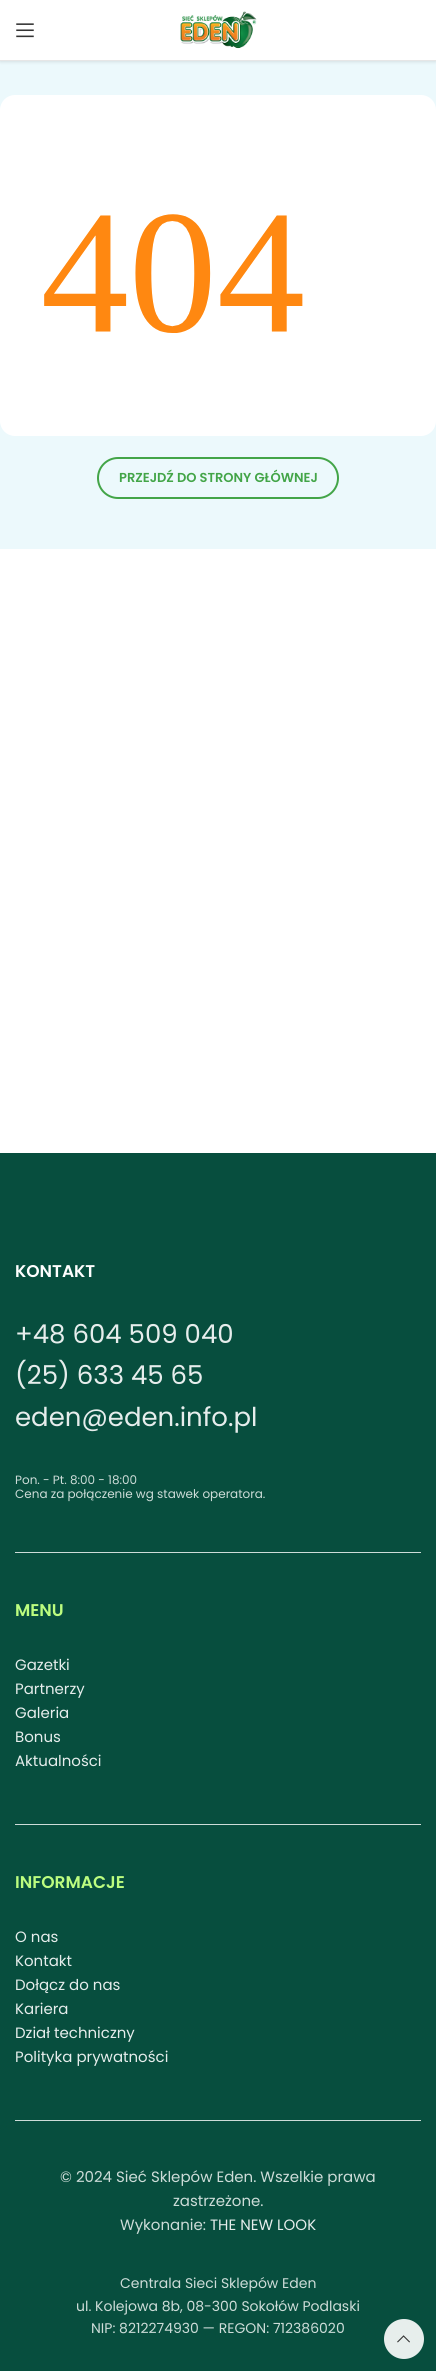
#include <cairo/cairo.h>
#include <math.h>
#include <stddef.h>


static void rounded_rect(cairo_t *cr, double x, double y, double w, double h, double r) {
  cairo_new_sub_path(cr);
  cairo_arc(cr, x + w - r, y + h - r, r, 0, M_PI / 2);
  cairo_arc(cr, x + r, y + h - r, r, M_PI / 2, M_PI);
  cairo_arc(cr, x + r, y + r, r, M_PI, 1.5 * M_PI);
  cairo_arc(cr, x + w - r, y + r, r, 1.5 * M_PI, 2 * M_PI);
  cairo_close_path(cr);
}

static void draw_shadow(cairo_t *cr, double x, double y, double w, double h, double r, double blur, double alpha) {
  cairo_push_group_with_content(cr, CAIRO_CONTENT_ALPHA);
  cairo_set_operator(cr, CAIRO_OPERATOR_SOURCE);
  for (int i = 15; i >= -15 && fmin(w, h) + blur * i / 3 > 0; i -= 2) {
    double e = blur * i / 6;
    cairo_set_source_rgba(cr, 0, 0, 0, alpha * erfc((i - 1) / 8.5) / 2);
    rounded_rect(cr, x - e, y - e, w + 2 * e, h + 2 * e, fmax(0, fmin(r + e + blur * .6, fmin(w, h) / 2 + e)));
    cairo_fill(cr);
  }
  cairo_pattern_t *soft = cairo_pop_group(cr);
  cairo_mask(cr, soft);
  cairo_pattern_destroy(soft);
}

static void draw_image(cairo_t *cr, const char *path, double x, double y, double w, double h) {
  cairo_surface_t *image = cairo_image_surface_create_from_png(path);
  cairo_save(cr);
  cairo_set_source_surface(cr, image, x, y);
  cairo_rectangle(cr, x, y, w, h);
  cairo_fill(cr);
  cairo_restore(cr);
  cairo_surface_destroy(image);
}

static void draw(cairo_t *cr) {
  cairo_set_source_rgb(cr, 1, 1, 1);
  cairo_paint(cr);
  cairo_set_source_rgb(cr, 236 / 255.0, 249 / 255.0, 252 / 255.0);
  cairo_rectangle(cr, 0, 61, 436, 488);
  cairo_fill(cr);
  cairo_set_source_rgb(cr, 0, 0, 0);
  draw_shadow(cr, 0, 1, 436, 61, 0, 1.5, 0.1);
  cairo_set_source_rgb(cr, 1, 1, 1);
  cairo_rectangle(cr, 0, 0, 436, 60);
  cairo_fill(cr);
  cairo_set_source_rgb(cr, 230 / 255.0, 230 / 255.0, 230 / 255.0);
  cairo_rectangle(cr, 0, 60, 436, 1);
  cairo_fill(cr);
  draw_image(cr, "images/1.png", 16, 23, 18, 15);
  draw_image(cr, "images/2.png", 180, 11, 77, 38);
  cairo_set_source_rgb(cr, 1, 1, 1);
  rounded_rect(cr, 0, 95, 436, 341, 15);
  cairo_fill(cr);
  draw_image(cr, "images/3.png", 44, 214, 259, 119);
  rounded_rect(cr, 98, 458, 240, 40, 20);
  cairo_set_source_rgb(cr, 67 / 255.0, 165 / 255.0, 72 / 255.0);
  cairo_stroke(cr);
  cairo_set_source_rgb(cr, 7 / 255.0, 78 / 255.0, 62 / 255.0);
  cairo_rectangle(cr, 0, 1153, 436, 1218);
  cairo_fill(cr);
  cairo_set_source_rgb(cr, 205 / 255.0, 220 / 255.0, 216 / 255.0);
  cairo_rectangle(cr, 15, 1552, 406, 1);
  cairo_fill(cr);
  cairo_rectangle(cr, 15, 1824, 406, 1);
  cairo_fill(cr);
  cairo_rectangle(cr, 15, 2120, 406, 1);
  cairo_fill(cr);
  cairo_set_source_rgba(cr, 1, 1, 1, 0.9);
  cairo_arc(cr, 404, 2339, 20, 0, 2 * M_PI);
  cairo_fill(cr);
  draw_image(cr, "images/4.png", 397, 2335, 13, 8);
  cairo_select_font_face(cr, "Poppins SemiBold", CAIRO_FONT_SLANT_NORMAL, CAIRO_FONT_WEIGHT_NORMAL);
  cairo_set_font_size(cr, 13);
  cairo_set_source_rgb(cr, 67 / 255.0, 165 / 255.0, 72 / 255.0);
  cairo_move_to(cr, 119, 482);
  cairo_show_text(cr, "PRZEJDŹ DO STRONY GŁÓWNEJ");
  cairo_set_font_size(cr, 17);
  cairo_set_source_rgb(cr, 1, 1, 1);
  cairo_move_to(cr, 15, 1277);
  cairo_show_text(cr, "KONTAKT");
  cairo_select_font_face(cr, "Poppins", CAIRO_FONT_SLANT_NORMAL, CAIRO_FONT_WEIGHT_NORMAL);
  cairo_set_font_size(cr, 26);
  cairo_set_source_rgb(cr, 230 / 255.0, 237 / 255.0, 236 / 255.0);
  cairo_move_to(cr, 15, 1343);
  cairo_show_text(cr, "+48 604 509 040");
  cairo_move_to(cr, 15, 1384);
  cairo_show_text(cr, "(25) 633 45 65");
  cairo_move_to(cr, 15, 1426);
  cairo_show_text(cr, "eden@eden.info.pl");
  cairo_set_font_size(cr, 12);
  cairo_set_source_rgb(cr, 205 / 255.0, 220 / 255.0, 216 / 255.0);
  cairo_move_to(cr, 15, 1484);
  cairo_show_text(cr, "Pon. - Pt. 8:00 - 18:00");
  cairo_move_to(cr, 15, 1498);
  cairo_show_text(cr, "Cena za połączenie wg stawek operatora.");
  cairo_select_font_face(cr, "Poppins SemiBold", CAIRO_FONT_SLANT_NORMAL, CAIRO_FONT_WEIGHT_NORMAL);
  cairo_set_font_size(cr, 17);
  cairo_set_source_rgb(cr, 188 / 255.0, 253 / 255.0, 127 / 255.0);
  cairo_move_to(cr, 15, 1616);
  cairo_show_text(cr, "MENU");
  cairo_select_font_face(cr, "Poppins", CAIRO_FONT_SLANT_NORMAL, CAIRO_FONT_WEIGHT_NORMAL);
  cairo_set_font_size(cr, 15);
  cairo_set_source_rgb(cr, 230 / 255.0, 237 / 255.0, 236 / 255.0);
  cairo_move_to(cr, 15, 1670);
  cairo_show_text(cr, "Gazetki");
  cairo_move_to(cr, 15, 1694);
  cairo_show_text(cr, "Partnerzy");
  cairo_move_to(cr, 15, 1718);
  cairo_show_text(cr, "Galeria");
  cairo_move_to(cr, 15, 1742);
  cairo_show_text(cr, "Bonus");
  cairo_move_to(cr, 15, 1766);
  cairo_show_text(cr, "Aktualności");
  cairo_select_font_face(cr, "Poppins SemiBold", CAIRO_FONT_SLANT_NORMAL, CAIRO_FONT_WEIGHT_NORMAL);
  cairo_set_font_size(cr, 17);
  cairo_set_source_rgb(cr, 188 / 255.0, 253 / 255.0, 127 / 255.0);
  cairo_move_to(cr, 15, 1888);
  cairo_show_text(cr, "INFORMACJE");
  cairo_select_font_face(cr, "Poppins", CAIRO_FONT_SLANT_NORMAL, CAIRO_FONT_WEIGHT_NORMAL);
  cairo_set_font_size(cr, 15);
  cairo_set_source_rgb(cr, 230 / 255.0, 237 / 255.0, 236 / 255.0);
  cairo_move_to(cr, 15, 1942);
  cairo_show_text(cr, "O nas");
  cairo_move_to(cr, 15, 1966);
  cairo_show_text(cr, "Kontakt");
  cairo_move_to(cr, 15, 1990);
  cairo_show_text(cr, "Dołącz do nas");
  cairo_move_to(cr, 15, 2014);
  cairo_show_text(cr, "Kariera");
  cairo_move_to(cr, 15, 2038);
  cairo_show_text(cr, "Dział techniczny");
  cairo_move_to(cr, 15, 2062);
  cairo_show_text(cr, "Polityka prywatności");
  cairo_set_source_rgb(cr, 205 / 255.0, 220 / 255.0, 216 / 255.0);
  cairo_move_to(cr, 60, 2182);
  cairo_show_text(cr, "© 2024 Sieć Sklepów Eden. Wszelkie prawa");
  cairo_move_to(cr, 173, 2206);
  cairo_show_text(cr, "zastrzeżone.");
  cairo_move_to(cr, 120, 2230);
  cairo_show_text(cr, "Wykonanie:");
  cairo_set_source_rgb(cr, 230 / 255.0, 237 / 255.0, 236 / 255.0);
  cairo_move_to(cr, 210, 2230);
  cairo_show_text(cr, "THE NEW LOOK");
  cairo_set_font_size(cr, 14);
  cairo_set_source_rgb(cr, 205 / 255.0, 220 / 255.0, 216 / 255.0);
  cairo_move_to(cr, 120, 2288);
  cairo_show_text(cr, "Centrala Sieci Sklepów Eden");
  cairo_move_to(cr, 76, 2311);
  cairo_show_text(cr, "ul. Kolejowa 8b, 08-300 Sokołów Podlaski");
  cairo_move_to(cr, 91, 2333);
  cairo_show_text(cr, "NIP: 8212274930 — REGON: 712386020");
}

int main(void) {
  cairo_surface_t *surface = cairo_image_surface_create(CAIRO_FORMAT_RGB24, 436, 2371);
  cairo_t *cr = cairo_create(surface);
  cairo_font_options_t *options = cairo_font_options_create();
  cairo_font_options_set_hint_metrics(options, CAIRO_HINT_METRICS_OFF);
  cairo_font_options_set_hint_style(options, CAIRO_HINT_STYLE_NONE);
  cairo_set_font_options(cr, options);
  cairo_set_miter_limit(cr, 4);
  draw(cr);
  cairo_surface_write_to_png(surface, "out.png");
  cairo_font_options_destroy(options);
  cairo_destroy(cr);
  cairo_surface_destroy(surface);
  return 0;
}
